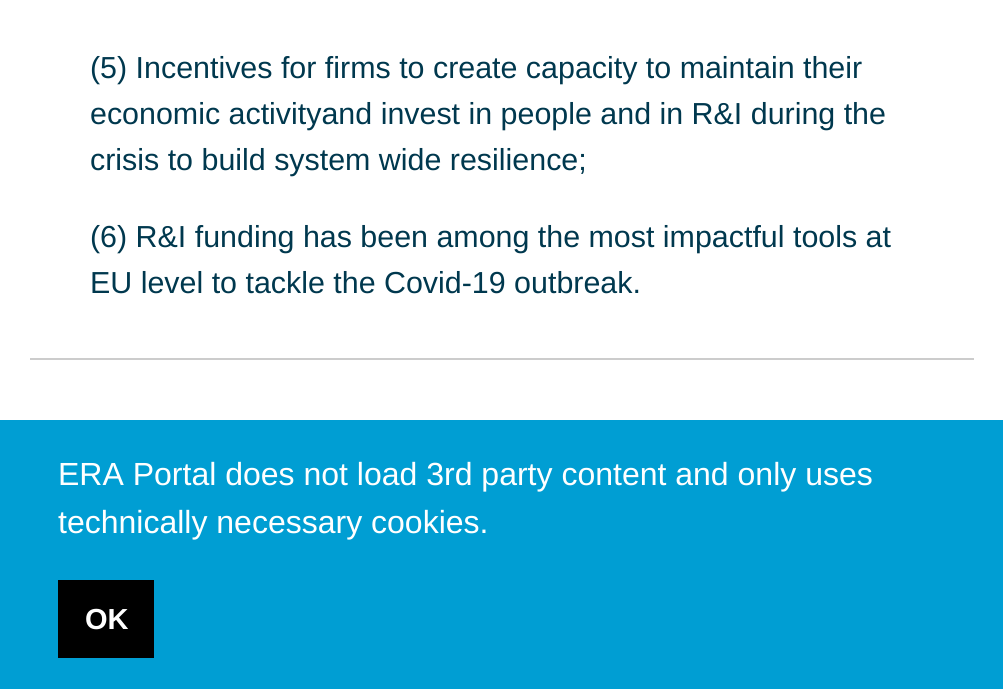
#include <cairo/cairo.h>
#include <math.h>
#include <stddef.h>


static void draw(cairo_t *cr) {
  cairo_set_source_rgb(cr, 1, 1, 1);
  cairo_paint(cr);
  cairo_set_source_rgb(cr, 204 / 255.0, 204 / 255.0, 204 / 255.0);
  cairo_rectangle(cr, 30, 358, 944, 2);
  cairo_fill(cr);
  cairo_set_source_rgb(cr, 0, 158 / 255.0, 211 / 255.0);
  cairo_rectangle(cr, 0, 420, 1003, 269);
  cairo_fill(cr);
  cairo_set_source_rgb(cr, 0, 0, 0);
  cairo_rectangle(cr, 58, 580, 96, 78);
  cairo_fill(cr);
  cairo_select_font_face(cr, "Liberation Sans", CAIRO_FONT_SLANT_NORMAL, CAIRO_FONT_WEIGHT_NORMAL);
  cairo_set_font_size(cr, 30.4);
  cairo_set_source_rgb(cr, 0, 56 / 255.0, 78 / 255.0);
  cairo_move_to(cr, 90, 78);
  cairo_show_text(cr, "(5) Incentives for firms to create capacity to maintain their");
  cairo_move_to(cr, 90, 124);
  cairo_show_text(cr, "economic activityand invest in people and in R&I during the");
  cairo_move_to(cr, 90, 170);
  cairo_show_text(cr, "crisis to build system wide resilience;");
  cairo_move_to(cr, 90, 247);
  cairo_show_text(cr, "(6) R&I funding has been among the most impactful tools at");
  cairo_move_to(cr, 90, 293);
  cairo_show_text(cr, "EU level to tackle the Covid-19 outbreak.");
  cairo_set_font_size(cr, 32);
  cairo_set_source_rgb(cr, 1, 1, 1);
  cairo_move_to(cr, 58, 485);
  cairo_show_text(cr, "ERA Portal does not load 3rd party content and only uses");
  cairo_move_to(cr, 58, 533);
  cairo_show_text(cr, "technically necessary cookies.");
  cairo_select_font_face(cr, "Liberation Sans", CAIRO_FONT_SLANT_NORMAL, CAIRO_FONT_WEIGHT_BOLD);
  cairo_set_font_size(cr, 29);
  cairo_move_to(cr, 85, 629);
  cairo_show_text(cr, "OK");
}

int main(void) {
  cairo_surface_t *surface = cairo_image_surface_create(CAIRO_FORMAT_RGB24, 1003, 689);
  cairo_t *cr = cairo_create(surface);
  cairo_font_options_t *options = cairo_font_options_create();
  cairo_font_options_set_hint_metrics(options, CAIRO_HINT_METRICS_OFF);
  cairo_font_options_set_hint_style(options, CAIRO_HINT_STYLE_NONE);
  cairo_set_font_options(cr, options);
  cairo_set_miter_limit(cr, 4);
  draw(cr);
  cairo_surface_write_to_png(surface, "out.png");
  cairo_font_options_destroy(options);
  cairo_destroy(cr);
  cairo_surface_destroy(surface);
  return 0;
}
